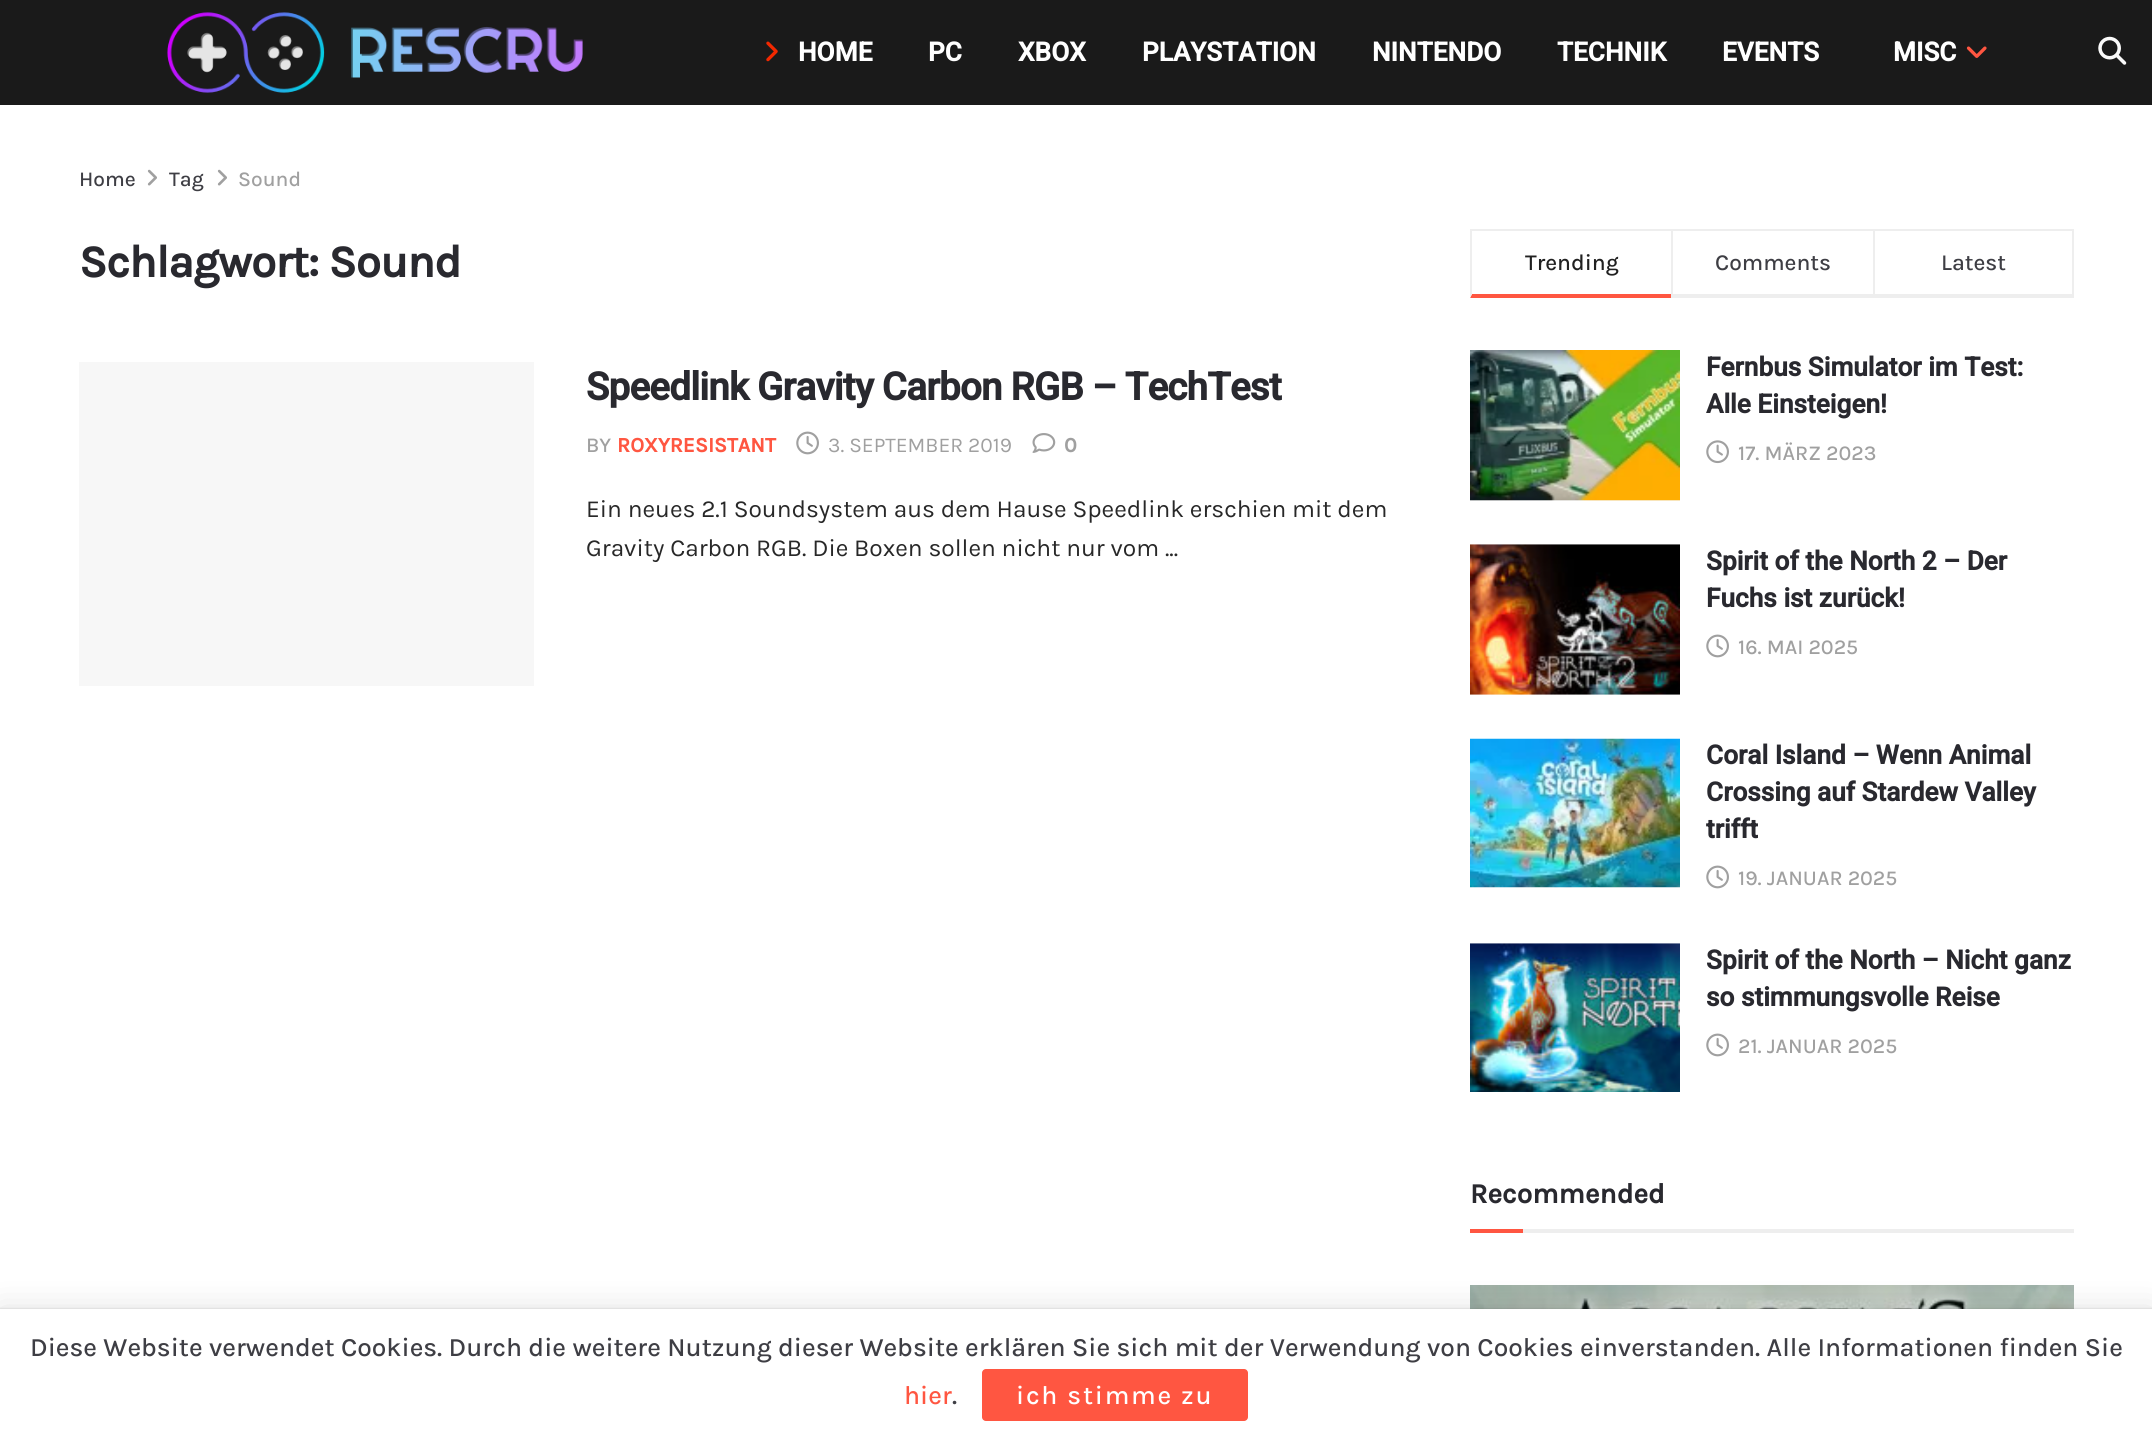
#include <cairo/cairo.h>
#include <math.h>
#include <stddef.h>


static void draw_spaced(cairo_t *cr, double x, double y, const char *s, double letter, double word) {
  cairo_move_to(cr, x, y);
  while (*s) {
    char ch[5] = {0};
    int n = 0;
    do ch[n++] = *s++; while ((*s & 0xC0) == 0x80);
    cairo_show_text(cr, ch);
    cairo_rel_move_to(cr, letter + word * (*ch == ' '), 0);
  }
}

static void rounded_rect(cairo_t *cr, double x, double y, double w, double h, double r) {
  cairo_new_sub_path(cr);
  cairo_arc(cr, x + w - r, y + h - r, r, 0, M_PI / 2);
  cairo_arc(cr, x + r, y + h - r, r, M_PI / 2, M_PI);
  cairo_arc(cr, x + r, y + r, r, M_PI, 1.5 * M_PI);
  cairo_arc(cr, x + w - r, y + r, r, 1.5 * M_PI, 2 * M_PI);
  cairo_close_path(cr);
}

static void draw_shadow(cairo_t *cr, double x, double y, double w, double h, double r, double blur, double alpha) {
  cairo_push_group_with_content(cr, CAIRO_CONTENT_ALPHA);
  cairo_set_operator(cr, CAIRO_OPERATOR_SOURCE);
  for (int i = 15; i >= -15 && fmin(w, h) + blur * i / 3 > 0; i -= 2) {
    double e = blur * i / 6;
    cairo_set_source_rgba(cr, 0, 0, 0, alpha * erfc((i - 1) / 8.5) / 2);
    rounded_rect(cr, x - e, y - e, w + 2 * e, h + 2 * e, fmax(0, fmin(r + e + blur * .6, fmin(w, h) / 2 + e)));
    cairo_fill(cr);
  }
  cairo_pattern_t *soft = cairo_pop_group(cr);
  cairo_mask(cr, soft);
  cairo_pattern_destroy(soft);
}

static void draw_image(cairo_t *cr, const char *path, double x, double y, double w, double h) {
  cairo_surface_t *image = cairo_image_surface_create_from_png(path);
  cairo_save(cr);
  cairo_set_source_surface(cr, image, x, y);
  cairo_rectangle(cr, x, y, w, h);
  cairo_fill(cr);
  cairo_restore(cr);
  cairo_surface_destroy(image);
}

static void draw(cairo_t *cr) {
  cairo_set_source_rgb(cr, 1, 1, 1);
  cairo_paint(cr);
  cairo_set_source_rgb(cr, 26 / 255.0, 26 / 255.0, 26 / 255.0);
  cairo_rectangle(cr, 0, 0, 2152, 105);
  cairo_fill(cr);
  draw_image(cr, "images/1.png", 167, 12, 416, 81);
  draw_image(cr, "images/2.png", 766, 41, 12, 21);
  draw_image(cr, "images/3.png", 1966, 46, 21, 12);
  draw_image(cr, "images/4.png", 2098, 36, 29, 29);
  draw_image(cr, "images/5.png", 147, 169, 10, 17);
  draw_image(cr, "images/5.png", 217, 169, 10, 17);
  cairo_set_source_rgb(cr, 247 / 255.0, 247 / 255.0, 247 / 255.0);
  cairo_rectangle(cr, 79, 362, 455, 324);
  cairo_fill(cr);
  draw_image(cr, "images/6.png", 796, 431, 23, 24);
  draw_image(cr, "images/7.png", 1032, 433, 24, 20);
  cairo_set_source_rgb(cr, 238 / 255.0, 238 / 255.0, 238 / 255.0);
  cairo_rectangle(cr, 1470, 229, 604, 2);
  cairo_fill(cr);
  cairo_set_source_rgb(cr, 1, 86 / 255.0, 65 / 255.0);
  cairo_new_path(cr);
  cairo_move_to(cr, 1671, 298);
  cairo_line_to(cr, 1470, 298);
  cairo_line_to(cr, 1472, 294);
  cairo_line_to(cr, 1671, 294);
  cairo_close_path(cr);
  cairo_fill(cr);
  cairo_set_source_rgb(cr, 238 / 255.0, 238 / 255.0, 238 / 255.0);
  cairo_new_path(cr);
  cairo_move_to(cr, 1470, 298);
  cairo_line_to(cr, 1470, 229);
  cairo_line_to(cr, 1472, 231);
  cairo_line_to(cr, 1472, 294);
  cairo_close_path(cr);
  cairo_fill(cr);
  cairo_rectangle(cr, 1671, 294, 202, 4);
  cairo_fill(cr);
  cairo_rectangle(cr, 1671, 229, 2, 69);
  cairo_fill(cr);
  cairo_rectangle(cr, 2072, 229, 2, 69);
  cairo_fill(cr);
  cairo_rectangle(cr, 1873, 294, 201, 4);
  cairo_fill(cr);
  cairo_rectangle(cr, 1873, 229, 2, 69);
  cairo_fill(cr);
  cairo_set_source_rgb(cr, 247 / 255.0, 247 / 255.0, 247 / 255.0);
  cairo_rectangle(cr, 1470, 500, 210, 1);
  cairo_fill(cr);
  draw_image(cr, "images/8.png", 1470, 350, 210, 151);
  draw_image(cr, "images/9.png", 1706, 440, 23, 24);
  cairo_rectangle(cr, 1470, 544, 210, 151);
  cairo_fill(cr);
  draw_image(cr, "images/10.png", 1470, 544, 210, 151);
  draw_image(cr, "images/6.png", 1706, 634, 23, 24);
  draw_image(cr, "images/11.png", 1470, 738, 210, 150);
  draw_image(cr, "images/6.png", 1706, 865, 23, 24);
  cairo_rectangle(cr, 1470, 943, 210, 1);
  cairo_fill(cr);
  draw_image(cr, "images/12.png", 1470, 943, 210, 149);
  draw_image(cr, "images/6.png", 1706, 1033, 23, 24);
  cairo_set_source_rgb(cr, 238 / 255.0, 238 / 255.0, 238 / 255.0);
  cairo_rectangle(cr, 1523, 1229, 551, 4);
  cairo_fill(cr);
  cairo_set_source_rgb(cr, 1, 86 / 255.0, 65 / 255.0);
  cairo_rectangle(cr, 1470, 1229, 53, 4);
  cairo_fill(cr);
  draw_image(cr, "images/13.png", 1470, 1285, 604, 24);
  cairo_set_source_rgb(cr, 0, 0, 0);
  draw_shadow(cr, 0, 1313, 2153, 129, 0, 17.5, 0.15);
  draw_shadow(cr, 0, 1309, 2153, 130, 0, 1, 0.2);
  cairo_set_source_rgb(cr, 1, 1, 1);
  cairo_rectangle(cr, 0, 1309, 2152, 128);
  cairo_fill(cr);
  cairo_set_source_rgb(cr, 1, 86 / 255.0, 65 / 255.0);
  rounded_rect(cr, 982, 1369, 266, 52, 4);
  cairo_fill(cr);
  cairo_select_font_face(cr, "Roboto", CAIRO_FONT_SLANT_NORMAL, CAIRO_FONT_WEIGHT_BOLD);
  cairo_set_font_size(cr, 26.25);
  cairo_set_source_rgb(cr, 1, 1, 1);
  cairo_move_to(cr, 798, 61);
  cairo_show_text(cr, "HOME");
  cairo_move_to(cr, 928, 61);
  cairo_show_text(cr, "PC");
  cairo_move_to(cr, 1018, 61);
  cairo_show_text(cr, "XBOX");
  cairo_move_to(cr, 1142, 61);
  cairo_show_text(cr, "PLAYSTATION");
  cairo_move_to(cr, 1372, 61);
  cairo_show_text(cr, "NINTENDO");
  cairo_move_to(cr, 1557, 61);
  cairo_show_text(cr, "TECHNIK");
  cairo_move_to(cr, 1722, 61);
  cairo_show_text(cr, "EVENTS");
  cairo_move_to(cr, 1893, 61);
  cairo_show_text(cr, "MISC");
  cairo_select_font_face(cr, "Karla Medium", CAIRO_FONT_SLANT_NORMAL, CAIRO_FONT_WEIGHT_NORMAL);
  cairo_set_font_size(cr, 21);
  cairo_set_source_rgb(cr, 62 / 255.0, 62 / 255.0, 68 / 255.0);
  cairo_move_to(cr, 79, 186);
  cairo_show_text(cr, "Home");
  cairo_move_to(cr, 169, 186);
  cairo_show_text(cr, "Tag");
  cairo_set_source_rgb(cr, 160 / 255.0, 160 / 255.0, 160 / 255.0);
  cairo_move_to(cr, 238, 186);
  cairo_show_text(cr, "Sound");
  cairo_select_font_face(cr, "Karla", CAIRO_FONT_SLANT_NORMAL, CAIRO_FONT_WEIGHT_BOLD);
  cairo_set_font_size(cr, 45.5);
  cairo_set_source_rgb(cr, 41 / 255.0, 41 / 255.0, 47 / 255.0);
  draw_spaced(cr, 79, 277, "Schlagwort: Sound", -0.9, 0);
  cairo_select_font_face(cr, "Roboto", CAIRO_FONT_SLANT_NORMAL, CAIRO_FONT_WEIGHT_BOLD);
  cairo_set_font_size(cr, 38.5);
  draw_spaced(cr, 586, 400, "Speedlink Gravity Carbon RGB – TechTest", -0.75, 0);
  cairo_select_font_face(cr, "Karla Medium", CAIRO_FONT_SLANT_NORMAL, CAIRO_FONT_WEIGHT_NORMAL);
  cairo_set_font_size(cr, 21);
  cairo_set_source_rgb(cr, 160 / 255.0, 160 / 255.0, 160 / 255.0);
  cairo_move_to(cr, 586, 452);
  cairo_show_text(cr, "BY");
  cairo_select_font_face(cr, "Karla", CAIRO_FONT_SLANT_NORMAL, CAIRO_FONT_WEIGHT_BOLD);
  cairo_set_source_rgb(cr, 1, 86 / 255.0, 65 / 255.0);
  cairo_move_to(cr, 617, 452);
  cairo_show_text(cr, "ROXYRESISTANT");
  cairo_select_font_face(cr, "Karla", CAIRO_FONT_SLANT_NORMAL, CAIRO_FONT_WEIGHT_NORMAL);
  cairo_set_source_rgb(cr, 160 / 255.0, 160 / 255.0, 160 / 255.0);
  cairo_move_to(cr, 828, 452);
  cairo_show_text(cr, "3. SEPTEMBER 2019");
  cairo_select_font_face(cr, "Karla", CAIRO_FONT_SLANT_NORMAL, CAIRO_FONT_WEIGHT_BOLD);
  cairo_move_to(cr, 1064, 452);
  cairo_show_text(cr, "0");
  cairo_select_font_face(cr, "Karla", CAIRO_FONT_SLANT_NORMAL, CAIRO_FONT_WEIGHT_NORMAL);
  cairo_set_font_size(cr, 24.5);
  cairo_set_source_rgb(cr, 40 / 255.0, 40 / 255.0, 40 / 255.0);
  cairo_move_to(cr, 586, 517);
  cairo_show_text(cr, "Ein neues 2.1 Soundsystem aus dem Hause Speedlink erschien mit dem");
  cairo_move_to(cr, 586, 556);
  cairo_show_text(cr, "Gravity Carbon RGB. Die Boxen sollen nicht nur vom ...");
  cairo_select_font_face(cr, "Karla Medium", CAIRO_FONT_SLANT_NORMAL, CAIRO_FONT_WEIGHT_NORMAL);
  cairo_set_font_size(cr, 22.75);
  cairo_set_source_rgb(cr, 33 / 255.0, 33 / 255.0, 33 / 255.0);
  cairo_move_to(cr, 1525, 270);
  cairo_show_text(cr, "Trending");
  cairo_set_source_rgb(cr, 62 / 255.0, 62 / 255.0, 68 / 255.0);
  cairo_move_to(cr, 1715, 270);
  cairo_show_text(cr, "Comments");
  cairo_move_to(cr, 1941, 270);
  cairo_show_text(cr, "Latest");
  cairo_select_font_face(cr, "Roboto", CAIRO_FONT_SLANT_NORMAL, CAIRO_FONT_WEIGHT_BOLD);
  cairo_set_font_size(cr, 26.25);
  cairo_set_source_rgb(cr, 41 / 255.0, 41 / 255.0, 47 / 255.0);
  cairo_move_to(cr, 1706, 376);
  cairo_show_text(cr, "Fernbus Simulator im Test:");
  cairo_move_to(cr, 1706, 413);
  cairo_show_text(cr, "Alle Einsteigen!");
  cairo_select_font_face(cr, "Karla Medium", CAIRO_FONT_SLANT_NORMAL, CAIRO_FONT_WEIGHT_NORMAL);
  cairo_set_font_size(cr, 21);
  cairo_set_source_rgb(cr, 160 / 255.0, 160 / 255.0, 160 / 255.0);
  cairo_move_to(cr, 1738, 460);
  cairo_show_text(cr, "17. MÄRZ 2023");
  cairo_select_font_face(cr, "Roboto", CAIRO_FONT_SLANT_NORMAL, CAIRO_FONT_WEIGHT_BOLD);
  cairo_set_font_size(cr, 26.25);
  cairo_set_source_rgb(cr, 41 / 255.0, 41 / 255.0, 47 / 255.0);
  cairo_move_to(cr, 1706, 570);
  cairo_show_text(cr, "Spirit of the North 2 – Der");
  cairo_move_to(cr, 1706, 607);
  cairo_show_text(cr, "Fuchs ist zurück!");
  cairo_select_font_face(cr, "Karla Medium", CAIRO_FONT_SLANT_NORMAL, CAIRO_FONT_WEIGHT_NORMAL);
  cairo_set_font_size(cr, 21);
  cairo_set_source_rgb(cr, 160 / 255.0, 160 / 255.0, 160 / 255.0);
  cairo_move_to(cr, 1738, 654);
  cairo_show_text(cr, "16. MAI 2025");
  cairo_select_font_face(cr, "Roboto", CAIRO_FONT_SLANT_NORMAL, CAIRO_FONT_WEIGHT_BOLD);
  cairo_set_font_size(cr, 26.25);
  cairo_set_source_rgb(cr, 41 / 255.0, 41 / 255.0, 47 / 255.0);
  cairo_move_to(cr, 1706, 764);
  cairo_show_text(cr, "Coral Island – Wenn Animal");
  cairo_move_to(cr, 1706, 801);
  cairo_show_text(cr, "Crossing auf Stardew Valley");
  cairo_move_to(cr, 1706, 838);
  cairo_show_text(cr, "trifft");
  cairo_select_font_face(cr, "Karla Medium", CAIRO_FONT_SLANT_NORMAL, CAIRO_FONT_WEIGHT_NORMAL);
  cairo_set_font_size(cr, 21);
  cairo_set_source_rgb(cr, 160 / 255.0, 160 / 255.0, 160 / 255.0);
  cairo_move_to(cr, 1738, 885);
  cairo_show_text(cr, "19. JANUAR 2025");
  cairo_select_font_face(cr, "Roboto", CAIRO_FONT_SLANT_NORMAL, CAIRO_FONT_WEIGHT_BOLD);
  cairo_set_font_size(cr, 26.25);
  cairo_set_source_rgb(cr, 41 / 255.0, 41 / 255.0, 47 / 255.0);
  cairo_move_to(cr, 1706, 969);
  cairo_show_text(cr, "Spirit of the North – Nicht ganz");
  cairo_move_to(cr, 1706, 1006);
  cairo_show_text(cr, "so stimmungsvolle Reise");
  cairo_select_font_face(cr, "Karla Medium", CAIRO_FONT_SLANT_NORMAL, CAIRO_FONT_WEIGHT_NORMAL);
  cairo_set_font_size(cr, 21);
  cairo_set_source_rgb(cr, 160 / 255.0, 160 / 255.0, 160 / 255.0);
  cairo_move_to(cr, 1738, 1053);
  cairo_show_text(cr, "21. JANUAR 2025");
  cairo_select_font_face(cr, "Karla", CAIRO_FONT_SLANT_NORMAL, CAIRO_FONT_WEIGHT_BOLD);
  cairo_set_font_size(cr, 28);
  cairo_set_source_rgb(cr, 41 / 255.0, 41 / 255.0, 47 / 255.0);
  cairo_move_to(cr, 1470, 1203);
  cairo_show_text(cr, "Recommended");
  cairo_select_font_face(cr, "Karla Medium", CAIRO_FONT_SLANT_NORMAL, CAIRO_FONT_WEIGHT_NORMAL);
  cairo_set_font_size(cr, 26.25);
  cairo_set_source_rgb(cr, 62 / 255.0, 62 / 255.0, 68 / 255.0);
  cairo_move_to(cr, 30, 1356);
  cairo_show_text(cr, "Diese Website verwendet Cookies. Durch die weitere Nutzung dieser Website erklären Sie sich mit der Verwendung von Cookies einverstanden. Alle Informationen finden Sie");
  cairo_set_source_rgb(cr, 1, 86 / 255.0, 65 / 255.0);
  cairo_move_to(cr, 904, 1404);
  cairo_show_text(cr, "hier");
  cairo_set_source_rgb(cr, 62 / 255.0, 62 / 255.0, 68 / 255.0);
  cairo_move_to(cr, 952, 1404);
  cairo_show_text(cr, ".");
  cairo_set_source_rgb(cr, 1, 1, 1);
  draw_spaced(cr, 1016, 1404, "ich stimme zu", 1.75, 0);
}

int main(void) {
  cairo_surface_t *surface = cairo_image_surface_create(CAIRO_FORMAT_RGB24, 2152, 1437);
  cairo_t *cr = cairo_create(surface);
  cairo_font_options_t *options = cairo_font_options_create();
  cairo_font_options_set_hint_metrics(options, CAIRO_HINT_METRICS_OFF);
  cairo_font_options_set_hint_style(options, CAIRO_HINT_STYLE_NONE);
  cairo_set_font_options(cr, options);
  cairo_set_miter_limit(cr, 4);
  draw(cr);
  cairo_surface_write_to_png(surface, "out.png");
  cairo_font_options_destroy(options);
  cairo_destroy(cr);
  cairo_surface_destroy(surface);
  return 0;
}
